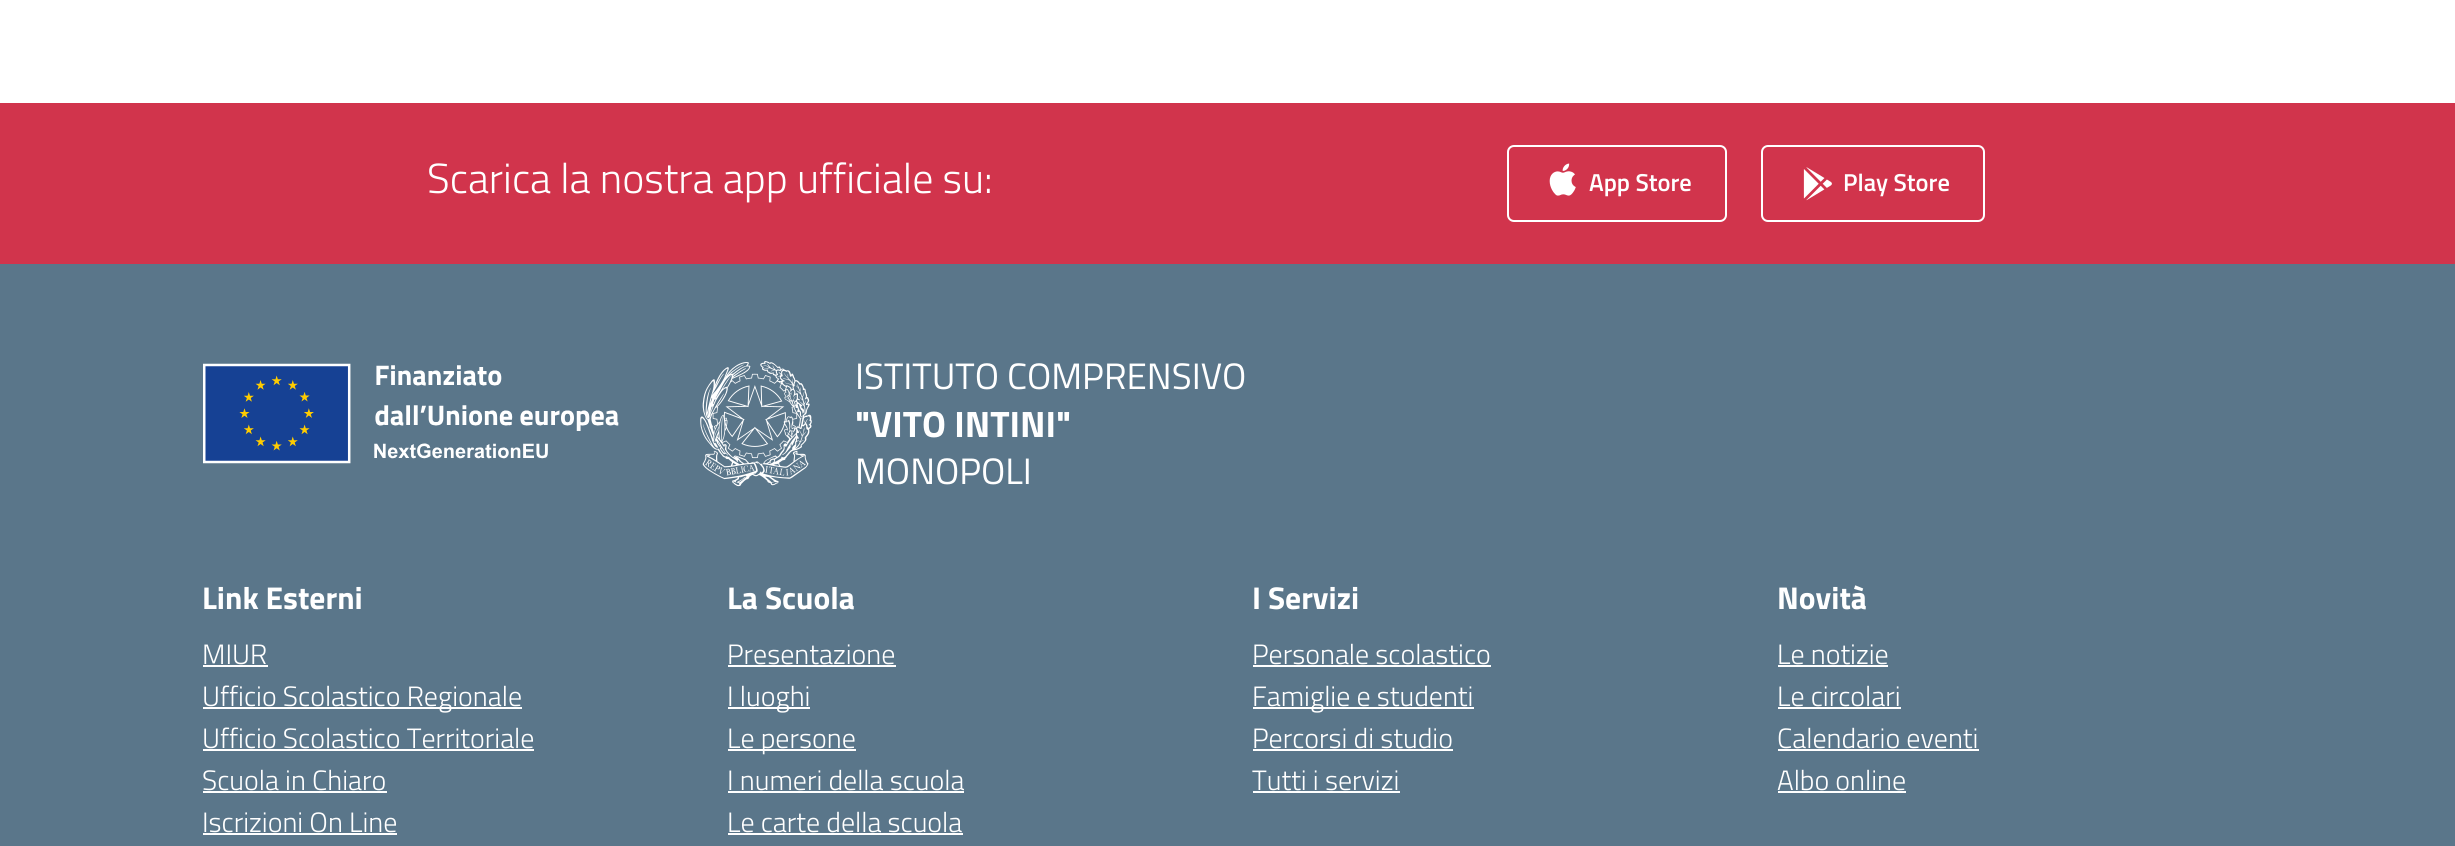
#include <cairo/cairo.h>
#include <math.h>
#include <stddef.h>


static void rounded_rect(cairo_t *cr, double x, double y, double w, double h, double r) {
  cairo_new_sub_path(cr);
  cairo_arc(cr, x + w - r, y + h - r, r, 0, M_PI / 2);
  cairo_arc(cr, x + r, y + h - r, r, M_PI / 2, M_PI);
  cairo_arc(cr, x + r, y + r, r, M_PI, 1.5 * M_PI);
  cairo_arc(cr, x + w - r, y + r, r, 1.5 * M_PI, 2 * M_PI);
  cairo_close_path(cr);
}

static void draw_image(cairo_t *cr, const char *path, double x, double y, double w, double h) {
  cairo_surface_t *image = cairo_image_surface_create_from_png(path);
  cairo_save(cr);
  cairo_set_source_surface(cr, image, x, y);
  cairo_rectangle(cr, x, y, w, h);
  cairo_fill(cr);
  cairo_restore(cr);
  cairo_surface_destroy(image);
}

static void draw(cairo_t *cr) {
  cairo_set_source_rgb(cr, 1, 1, 1);
  cairo_paint(cr);
  cairo_set_source_rgb(cr, 209 / 255.0, 52 / 255.0, 76 / 255.0);
  cairo_rectangle(cr, 0, 103, 2455, 161);
  cairo_fill(cr);
  rounded_rect(cr, 1508, 146, 218, 75, 6);
  cairo_set_source_rgb(cr, 1, 1, 1);
  cairo_stroke(cr);
  draw_image(cr, "images/1.png", 1549, 163, 27, 33);
  rounded_rect(cr, 1762, 146, 222, 75, 6);
  cairo_stroke(cr);
  draw_image(cr, "images/2.png", 1803, 167, 29, 34);
  cairo_set_source_rgb(cr, 90 / 255.0, 118 / 255.0, 138 / 255.0);
  cairo_rectangle(cr, 0, 264, 2455, 582);
  cairo_fill(cr);
  draw_image(cr, "images/3.png", 203, 363, 416, 101);
  draw_image(cr, "images/4.png", 700, 361, 112, 126);
  cairo_set_source_rgb(cr, 1, 1, 1);
  cairo_rectangle(cr, 203, 665, 65, 2);
  cairo_fill(cr);
  cairo_rectangle(cr, 203, 707, 319, 2);
  cairo_fill(cr);
  cairo_rectangle(cr, 203, 749, 331, 2);
  cairo_fill(cr);
  cairo_rectangle(cr, 203, 791, 184, 2);
  cairo_fill(cr);
  cairo_rectangle(cr, 203, 833, 194, 2);
  cairo_fill(cr);
  cairo_rectangle(cr, 728, 665, 168, 2);
  cairo_fill(cr);
  cairo_rectangle(cr, 728, 707, 82, 2);
  cairo_fill(cr);
  cairo_rectangle(cr, 728, 749, 128, 2);
  cairo_fill(cr);
  cairo_rectangle(cr, 728, 791, 236, 2);
  cairo_fill(cr);
  cairo_rectangle(cr, 728, 833, 235, 2);
  cairo_fill(cr);
  cairo_rectangle(cr, 1253, 665, 238, 2);
  cairo_fill(cr);
  cairo_rectangle(cr, 1253, 707, 221, 2);
  cairo_fill(cr);
  cairo_rectangle(cr, 1253, 749, 200, 2);
  cairo_fill(cr);
  cairo_rectangle(cr, 1253, 791, 147, 2);
  cairo_fill(cr);
  cairo_rectangle(cr, 1778, 665, 110, 2);
  cairo_fill(cr);
  cairo_rectangle(cr, 1778, 707, 123, 2);
  cairo_fill(cr);
  cairo_rectangle(cr, 1778, 749, 201, 2);
  cairo_fill(cr);
  cairo_rectangle(cr, 1778, 791, 128, 2);
  cairo_fill(cr);
  cairo_select_font_face(cr, "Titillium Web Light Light", CAIRO_FONT_SLANT_NORMAL, CAIRO_FONT_WEIGHT_NORMAL);
  cairo_set_font_size(cr, 42);
  cairo_move_to(cr, 427, 193);
  cairo_show_text(cr, "Scarica la nostra app ufficiale su:");
  cairo_select_font_face(cr, "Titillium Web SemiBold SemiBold", CAIRO_FONT_SLANT_NORMAL, CAIRO_FONT_WEIGHT_NORMAL);
  cairo_set_font_size(cr, 24.5);
  cairo_move_to(cr, 1589, 191);
  cairo_show_text(cr, "App Store");
  cairo_move_to(cr, 1843, 191);
  cairo_show_text(cr, "Play Store");
  cairo_select_font_face(cr, "Titillium Web", CAIRO_FONT_SLANT_NORMAL, CAIRO_FONT_WEIGHT_NORMAL);
  cairo_set_font_size(cr, 36.75);
  cairo_move_to(cr, 855, 389);
  cairo_show_text(cr, "ISTITUTO COMPRENSIVO");
  cairo_select_font_face(cr, "Titillium Web", CAIRO_FONT_SLANT_NORMAL, CAIRO_FONT_WEIGHT_BOLD);
  cairo_move_to(cr, 855, 437);
  cairo_show_text(cr, "\"VITO INTINI\"");
  cairo_select_font_face(cr, "Titillium Web", CAIRO_FONT_SLANT_NORMAL, CAIRO_FONT_WEIGHT_NORMAL);
  cairo_move_to(cr, 855, 484);
  cairo_show_text(cr, "MONOPOLI");
  cairo_select_font_face(cr, "Titillium Web", CAIRO_FONT_SLANT_NORMAL, CAIRO_FONT_WEIGHT_BOLD);
  cairo_set_font_size(cr, 31.5);
  cairo_move_to(cr, 202, 609);
  cairo_show_text(cr, "Link Esterni");
  cairo_select_font_face(cr, "Titillium Web Light Light", CAIRO_FONT_SLANT_NORMAL, CAIRO_FONT_WEIGHT_NORMAL);
  cairo_set_font_size(cr, 28);
  cairo_move_to(cr, 202, 664);
  cairo_show_text(cr, "MIUR");
  cairo_move_to(cr, 202, 706);
  cairo_show_text(cr, "Ufficio Scolastico Regionale");
  cairo_move_to(cr, 202, 748);
  cairo_show_text(cr, "Ufficio Scolastico Territoriale");
  cairo_move_to(cr, 202, 790);
  cairo_show_text(cr, "Scuola in Chiaro");
  cairo_move_to(cr, 202, 832);
  cairo_show_text(cr, "Iscrizioni On Line");
  cairo_select_font_face(cr, "Titillium Web", CAIRO_FONT_SLANT_NORMAL, CAIRO_FONT_WEIGHT_BOLD);
  cairo_set_font_size(cr, 31.5);
  cairo_move_to(cr, 727, 609);
  cairo_show_text(cr, "La Scuola");
  cairo_select_font_face(cr, "Titillium Web Light Light", CAIRO_FONT_SLANT_NORMAL, CAIRO_FONT_WEIGHT_NORMAL);
  cairo_set_font_size(cr, 28);
  cairo_move_to(cr, 727, 664);
  cairo_show_text(cr, "Presentazione");
  cairo_move_to(cr, 727, 706);
  cairo_show_text(cr, "I luoghi");
  cairo_move_to(cr, 727, 748);
  cairo_show_text(cr, "Le persone");
  cairo_move_to(cr, 727, 790);
  cairo_show_text(cr, "I numeri della scuola");
  cairo_move_to(cr, 727, 832);
  cairo_show_text(cr, "Le carte della scuola");
  cairo_select_font_face(cr, "Titillium Web", CAIRO_FONT_SLANT_NORMAL, CAIRO_FONT_WEIGHT_BOLD);
  cairo_set_font_size(cr, 31.5);
  cairo_move_to(cr, 1252, 609);
  cairo_show_text(cr, "I Servizi");
  cairo_select_font_face(cr, "Titillium Web Light Light", CAIRO_FONT_SLANT_NORMAL, CAIRO_FONT_WEIGHT_NORMAL);
  cairo_set_font_size(cr, 28);
  cairo_move_to(cr, 1252, 664);
  cairo_show_text(cr, "Personale scolastico");
  cairo_move_to(cr, 1252, 706);
  cairo_show_text(cr, "Famiglie e studenti");
  cairo_move_to(cr, 1252, 748);
  cairo_show_text(cr, "Percorsi di studio");
  cairo_move_to(cr, 1252, 790);
  cairo_show_text(cr, "Tutti i servizi");
  cairo_select_font_face(cr, "Titillium Web", CAIRO_FONT_SLANT_NORMAL, CAIRO_FONT_WEIGHT_BOLD);
  cairo_set_font_size(cr, 31.5);
  cairo_move_to(cr, 1777, 609);
  cairo_show_text(cr, "Novità");
  cairo_select_font_face(cr, "Titillium Web Light Light", CAIRO_FONT_SLANT_NORMAL, CAIRO_FONT_WEIGHT_NORMAL);
  cairo_set_font_size(cr, 28);
  cairo_move_to(cr, 1777, 664);
  cairo_show_text(cr, "Le notizie");
  cairo_move_to(cr, 1777, 706);
  cairo_show_text(cr, "Le circolari");
  cairo_move_to(cr, 1777, 748);
  cairo_show_text(cr, "Calendario eventi");
  cairo_move_to(cr, 1777, 790);
  cairo_show_text(cr, "Albo online");
}

int main(void) {
  cairo_surface_t *surface = cairo_image_surface_create(CAIRO_FORMAT_RGB24, 2455, 846);
  cairo_t *cr = cairo_create(surface);
  cairo_font_options_t *options = cairo_font_options_create();
  cairo_font_options_set_hint_metrics(options, CAIRO_HINT_METRICS_OFF);
  cairo_font_options_set_hint_style(options, CAIRO_HINT_STYLE_NONE);
  cairo_set_font_options(cr, options);
  cairo_set_miter_limit(cr, 4);
  draw(cr);
  cairo_surface_write_to_png(surface, "out.png");
  cairo_font_options_destroy(options);
  cairo_destroy(cr);
  cairo_surface_destroy(surface);
  return 0;
}
